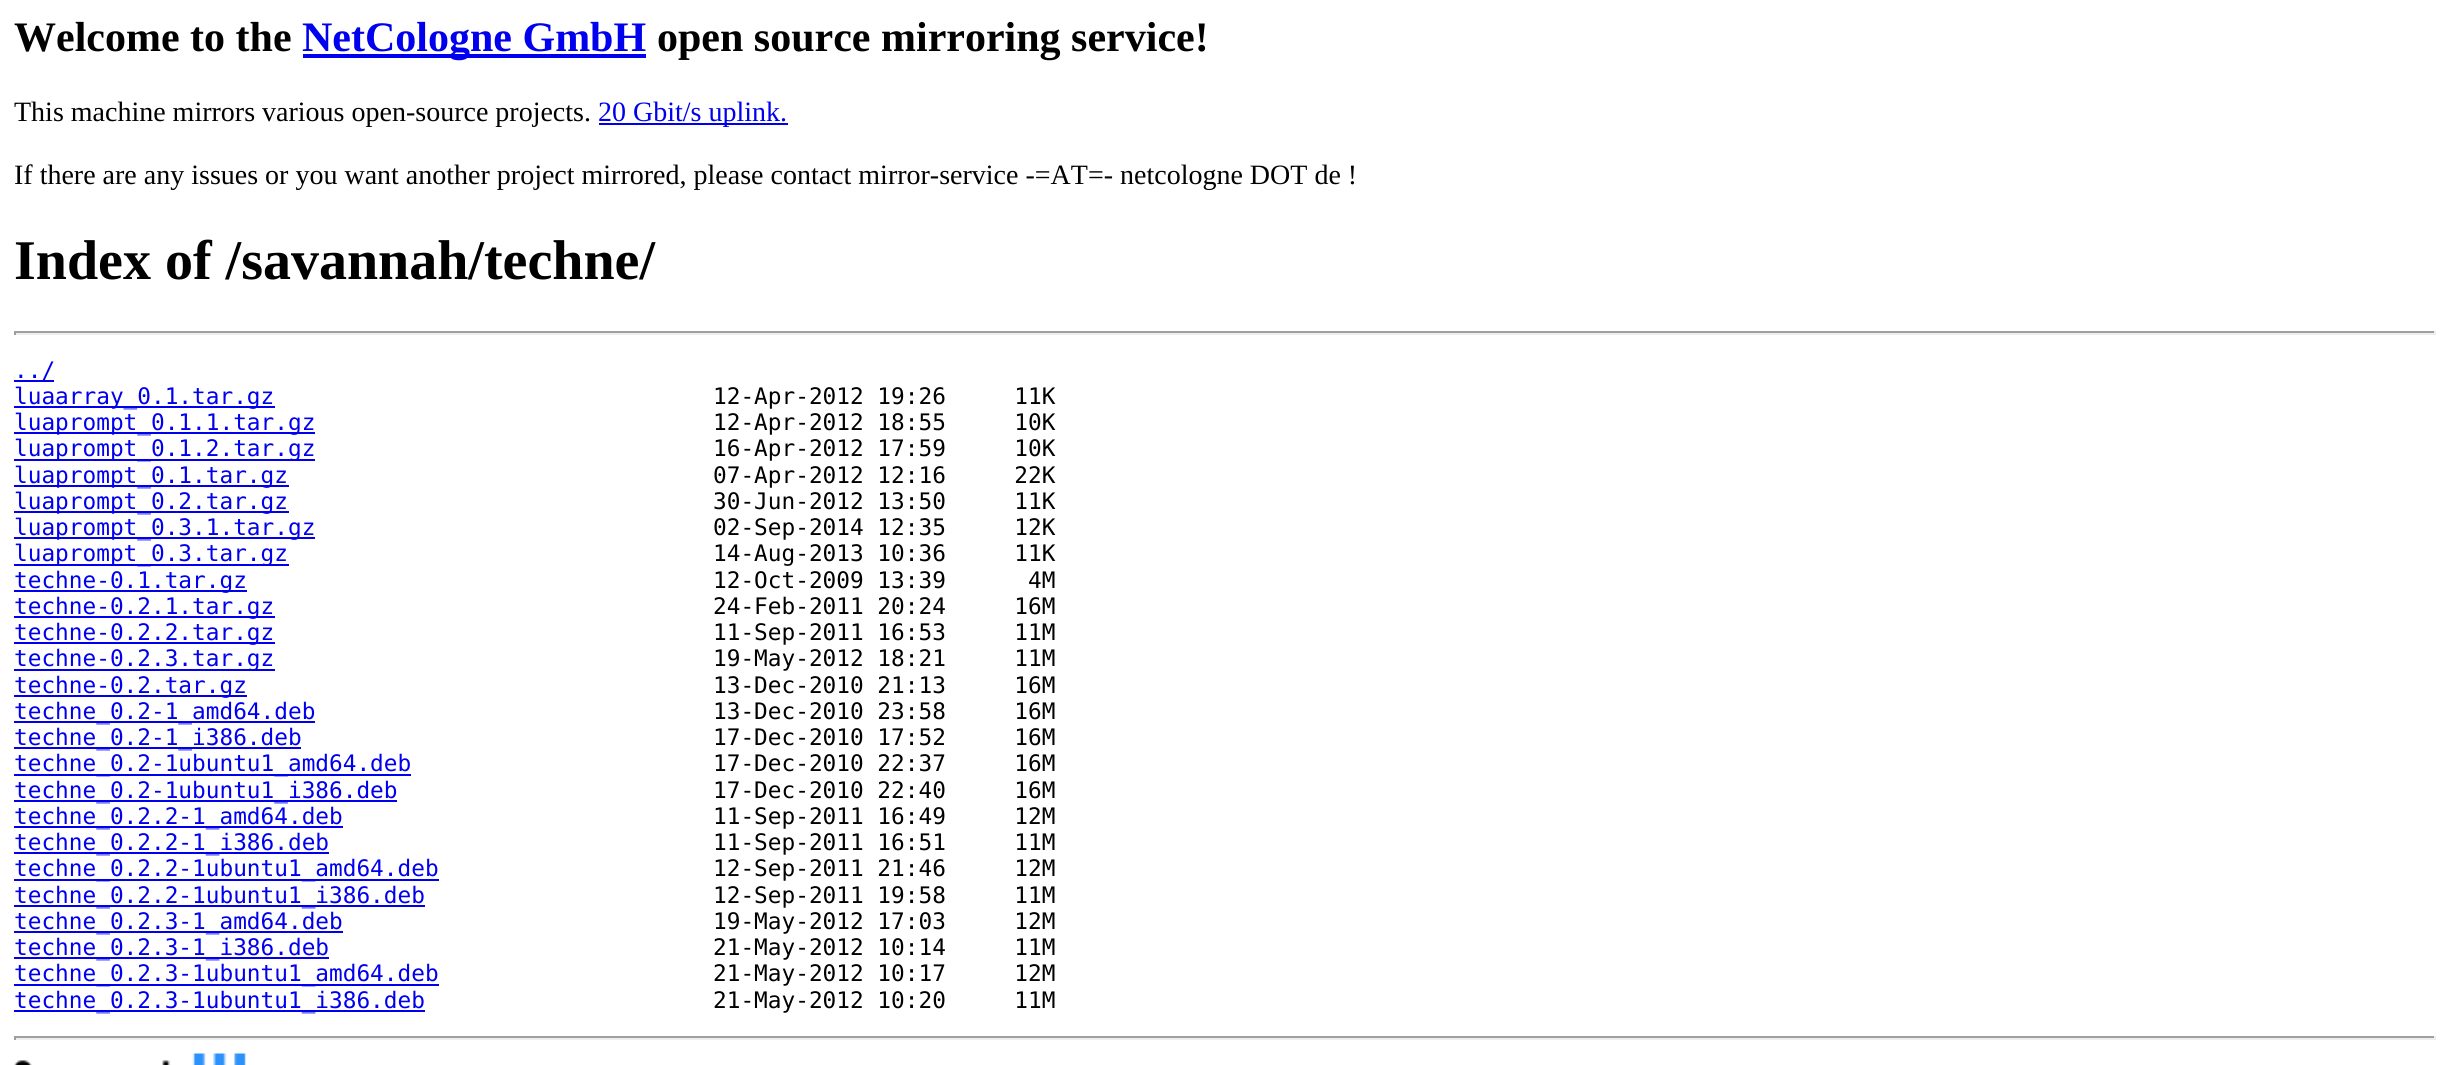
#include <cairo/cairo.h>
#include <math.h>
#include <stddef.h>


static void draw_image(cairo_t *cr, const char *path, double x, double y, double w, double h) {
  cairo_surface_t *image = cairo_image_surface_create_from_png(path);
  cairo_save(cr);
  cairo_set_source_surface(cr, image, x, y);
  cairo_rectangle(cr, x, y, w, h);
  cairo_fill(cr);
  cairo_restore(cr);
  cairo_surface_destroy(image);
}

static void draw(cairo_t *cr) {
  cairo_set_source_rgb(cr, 1, 1, 1);
  cairo_paint(cr);
  cairo_set_source_rgb(cr, 0, 0, 238 / 255.0);
  cairo_rectangle(cr, 303, 54, 343, 4);
  cairo_fill(cr);
  cairo_rectangle(cr, 599, 123, 189, 2);
  cairo_fill(cr);
  cairo_set_source_rgb(cr, 159 / 255.0, 159 / 255.0, 159 / 255.0);
  cairo_rectangle(cr, 14, 331, 2422, 2);
  cairo_fill(cr);
  cairo_set_source_rgb(cr, 238 / 255.0, 238 / 255.0, 238 / 255.0);
  cairo_rectangle(cr, 2434, 331, 2, 4);
  cairo_fill(cr);
  cairo_rectangle(cr, 14, 333, 2422, 2);
  cairo_fill(cr);
  cairo_set_source_rgb(cr, 159 / 255.0, 159 / 255.0, 159 / 255.0);
  cairo_rectangle(cr, 14, 331, 2, 4);
  cairo_fill(cr);
  cairo_set_source_rgb(cr, 0, 0, 238 / 255.0);
  cairo_rectangle(cr, 14, 380, 40, 2);
  cairo_fill(cr);
  cairo_rectangle(cr, 14, 406, 261, 2);
  cairo_fill(cr);
  cairo_rectangle(cr, 14, 432, 301, 2);
  cairo_fill(cr);
  cairo_rectangle(cr, 14, 459, 301, 2);
  cairo_fill(cr);
  cairo_rectangle(cr, 14, 485, 275, 2);
  cairo_fill(cr);
  cairo_rectangle(cr, 14, 511, 275, 2);
  cairo_fill(cr);
  cairo_rectangle(cr, 14, 537, 301, 2);
  cairo_fill(cr);
  cairo_rectangle(cr, 14, 564, 275, 2);
  cairo_fill(cr);
  cairo_rectangle(cr, 14, 590, 233, 2);
  cairo_fill(cr);
  cairo_rectangle(cr, 14, 616, 261, 2);
  cairo_fill(cr);
  cairo_rectangle(cr, 14, 642, 261, 2);
  cairo_fill(cr);
  cairo_rectangle(cr, 14, 669, 261, 2);
  cairo_fill(cr);
  cairo_rectangle(cr, 14, 695, 233, 2);
  cairo_fill(cr);
  cairo_rectangle(cr, 14, 721, 301, 2);
  cairo_fill(cr);
  cairo_rectangle(cr, 14, 747, 287, 2);
  cairo_fill(cr);
  cairo_rectangle(cr, 14, 774, 397, 2);
  cairo_fill(cr);
  cairo_rectangle(cr, 14, 800, 383, 2);
  cairo_fill(cr);
  cairo_rectangle(cr, 14, 826, 329, 2);
  cairo_fill(cr);
  cairo_rectangle(cr, 14, 852, 315, 2);
  cairo_fill(cr);
  cairo_rectangle(cr, 14, 879, 425, 2);
  cairo_fill(cr);
  cairo_rectangle(cr, 14, 905, 411, 2);
  cairo_fill(cr);
  cairo_rectangle(cr, 14, 931, 329, 2);
  cairo_fill(cr);
  cairo_rectangle(cr, 14, 957, 315, 2);
  cairo_fill(cr);
  cairo_rectangle(cr, 14, 984, 425, 2);
  cairo_fill(cr);
  cairo_rectangle(cr, 14, 1010, 411, 2);
  cairo_fill(cr);
  cairo_set_source_rgb(cr, 159 / 255.0, 159 / 255.0, 159 / 255.0);
  cairo_rectangle(cr, 14, 1036, 2422, 2);
  cairo_fill(cr);
  cairo_set_source_rgb(cr, 238 / 255.0, 238 / 255.0, 238 / 255.0);
  cairo_rectangle(cr, 2434, 1036, 2, 4);
  cairo_fill(cr);
  cairo_rectangle(cr, 14, 1038, 2422, 2);
  cairo_fill(cr);
  cairo_set_source_rgb(cr, 159 / 255.0, 159 / 255.0, 159 / 255.0);
  cairo_rectangle(cr, 14, 1036, 2, 4);
  cairo_fill(cr);
  draw_image(cr, "images/1.png", 14, 1053, 232, 12);
  cairo_select_font_face(cr, "Liberation Serif", CAIRO_FONT_SLANT_NORMAL, CAIRO_FONT_WEIGHT_BOLD);
  cairo_set_font_size(cr, 42);
  cairo_set_source_rgb(cr, 0, 0, 0);
  cairo_move_to(cr, 14, 51);
  cairo_show_text(cr, "Welcome to the");
  cairo_set_source_rgb(cr, 0, 0, 238 / 255.0);
  cairo_move_to(cr, 302, 51);
  cairo_show_text(cr, "NetCologne GmbH");
  cairo_set_source_rgb(cr, 0, 0, 0);
  cairo_move_to(cr, 657, 51);
  cairo_show_text(cr, "open source mirroring service!");
  cairo_select_font_face(cr, "Liberation Serif", CAIRO_FONT_SLANT_NORMAL, CAIRO_FONT_WEIGHT_NORMAL);
  cairo_set_font_size(cr, 28);
  cairo_move_to(cr, 14, 121);
  cairo_show_text(cr, "This machine mirrors various open-source projects.");
  cairo_set_source_rgb(cr, 0, 0, 238 / 255.0);
  cairo_move_to(cr, 598, 121);
  cairo_show_text(cr, "20 Gbit/s uplink.");
  cairo_set_source_rgb(cr, 0, 0, 0);
  cairo_move_to(cr, 14, 184);
  cairo_show_text(cr, "If there are any issues or you want another project mirrored, please contact mirror-service -=AT=- netcologne DOT de !");
  cairo_select_font_face(cr, "Liberation Serif", CAIRO_FONT_SLANT_NORMAL, CAIRO_FONT_WEIGHT_BOLD);
  cairo_set_font_size(cr, 56);
  cairo_move_to(cr, 14, 279);
  cairo_show_text(cr, "Index of /savannah/techne/");
  cairo_select_font_face(cr, "DejaVu Sans Mono", CAIRO_FONT_SLANT_NORMAL, CAIRO_FONT_WEIGHT_NORMAL);
  cairo_set_font_size(cr, 22.75);
  cairo_set_source_rgb(cr, 0, 0, 238 / 255.0);
  cairo_move_to(cr, 14, 378);
  cairo_show_text(cr, "../");
  cairo_move_to(cr, 14, 404);
  cairo_show_text(cr, "luaarray_0.1.tar.gz");
  cairo_set_source_rgb(cr, 0, 0, 0);
  cairo_move_to(cr, 713, 404);
  cairo_show_text(cr, "12-Apr-2012 19:26     11K");
  cairo_set_source_rgb(cr, 0, 0, 238 / 255.0);
  cairo_move_to(cr, 14, 430);
  cairo_show_text(cr, "luaprompt_0.1.1.tar.gz");
  cairo_set_source_rgb(cr, 0, 0, 0);
  cairo_move_to(cr, 713, 430);
  cairo_show_text(cr, "12-Apr-2012 18:55     10K");
  cairo_set_source_rgb(cr, 0, 0, 238 / 255.0);
  cairo_move_to(cr, 14, 456);
  cairo_show_text(cr, "luaprompt_0.1.2.tar.gz");
  cairo_set_source_rgb(cr, 0, 0, 0);
  cairo_move_to(cr, 713, 456);
  cairo_show_text(cr, "16-Apr-2012 17:59     10K");
  cairo_set_source_rgb(cr, 0, 0, 238 / 255.0);
  cairo_move_to(cr, 14, 483);
  cairo_show_text(cr, "luaprompt_0.1.tar.gz");
  cairo_set_source_rgb(cr, 0, 0, 0);
  cairo_move_to(cr, 713, 483);
  cairo_show_text(cr, "07-Apr-2012 12:16     22K");
  cairo_set_source_rgb(cr, 0, 0, 238 / 255.0);
  cairo_move_to(cr, 14, 509);
  cairo_show_text(cr, "luaprompt_0.2.tar.gz");
  cairo_set_source_rgb(cr, 0, 0, 0);
  cairo_move_to(cr, 713, 509);
  cairo_show_text(cr, "30-Jun-2012 13:50     11K");
  cairo_set_source_rgb(cr, 0, 0, 238 / 255.0);
  cairo_move_to(cr, 14, 535);
  cairo_show_text(cr, "luaprompt_0.3.1.tar.gz");
  cairo_set_source_rgb(cr, 0, 0, 0);
  cairo_move_to(cr, 713, 535);
  cairo_show_text(cr, "02-Sep-2014 12:35     12K");
  cairo_set_source_rgb(cr, 0, 0, 238 / 255.0);
  cairo_move_to(cr, 14, 561);
  cairo_show_text(cr, "luaprompt_0.3.tar.gz");
  cairo_set_source_rgb(cr, 0, 0, 0);
  cairo_move_to(cr, 713, 561);
  cairo_show_text(cr, "14-Aug-2013 10:36     11K");
  cairo_set_source_rgb(cr, 0, 0, 238 / 255.0);
  cairo_move_to(cr, 14, 588);
  cairo_show_text(cr, "techne-0.1.tar.gz");
  cairo_set_source_rgb(cr, 0, 0, 0);
  cairo_move_to(cr, 713, 588);
  cairo_show_text(cr, "12-Oct-2009 13:39      4M");
  cairo_set_source_rgb(cr, 0, 0, 238 / 255.0);
  cairo_move_to(cr, 14, 614);
  cairo_show_text(cr, "techne-0.2.1.tar.gz");
  cairo_set_source_rgb(cr, 0, 0, 0);
  cairo_move_to(cr, 713, 614);
  cairo_show_text(cr, "24-Feb-2011 20:24     16M");
  cairo_set_source_rgb(cr, 0, 0, 238 / 255.0);
  cairo_move_to(cr, 14, 640);
  cairo_show_text(cr, "techne-0.2.2.tar.gz");
  cairo_set_source_rgb(cr, 0, 0, 0);
  cairo_move_to(cr, 713, 640);
  cairo_show_text(cr, "11-Sep-2011 16:53     11M");
  cairo_set_source_rgb(cr, 0, 0, 238 / 255.0);
  cairo_move_to(cr, 14, 666);
  cairo_show_text(cr, "techne-0.2.3.tar.gz");
  cairo_set_source_rgb(cr, 0, 0, 0);
  cairo_move_to(cr, 713, 666);
  cairo_show_text(cr, "19-May-2012 18:21     11M");
  cairo_set_source_rgb(cr, 0, 0, 238 / 255.0);
  cairo_move_to(cr, 14, 693);
  cairo_show_text(cr, "techne-0.2.tar.gz");
  cairo_set_source_rgb(cr, 0, 0, 0);
  cairo_move_to(cr, 713, 693);
  cairo_show_text(cr, "13-Dec-2010 21:13     16M");
  cairo_set_source_rgb(cr, 0, 0, 238 / 255.0);
  cairo_move_to(cr, 14, 719);
  cairo_show_text(cr, "techne_0.2-1_amd64.deb");
  cairo_set_source_rgb(cr, 0, 0, 0);
  cairo_move_to(cr, 713, 719);
  cairo_show_text(cr, "13-Dec-2010 23:58     16M");
  cairo_set_source_rgb(cr, 0, 0, 238 / 255.0);
  cairo_move_to(cr, 14, 745);
  cairo_show_text(cr, "techne_0.2-1_i386.deb");
  cairo_set_source_rgb(cr, 0, 0, 0);
  cairo_move_to(cr, 713, 745);
  cairo_show_text(cr, "17-Dec-2010 17:52     16M");
  cairo_set_source_rgb(cr, 0, 0, 238 / 255.0);
  cairo_move_to(cr, 14, 771);
  cairo_show_text(cr, "techne_0.2-1ubuntu1_amd64.deb");
  cairo_set_source_rgb(cr, 0, 0, 0);
  cairo_move_to(cr, 713, 771);
  cairo_show_text(cr, "17-Dec-2010 22:37     16M");
  cairo_set_source_rgb(cr, 0, 0, 238 / 255.0);
  cairo_move_to(cr, 14, 798);
  cairo_show_text(cr, "techne_0.2-1ubuntu1_i386.deb");
  cairo_set_source_rgb(cr, 0, 0, 0);
  cairo_move_to(cr, 713, 798);
  cairo_show_text(cr, "17-Dec-2010 22:40     16M");
  cairo_set_source_rgb(cr, 0, 0, 238 / 255.0);
  cairo_move_to(cr, 14, 824);
  cairo_show_text(cr, "techne_0.2.2-1_amd64.deb");
  cairo_set_source_rgb(cr, 0, 0, 0);
  cairo_move_to(cr, 713, 824);
  cairo_show_text(cr, "11-Sep-2011 16:49     12M");
  cairo_set_source_rgb(cr, 0, 0, 238 / 255.0);
  cairo_move_to(cr, 14, 850);
  cairo_show_text(cr, "techne_0.2.2-1_i386.deb");
  cairo_set_source_rgb(cr, 0, 0, 0);
  cairo_move_to(cr, 713, 850);
  cairo_show_text(cr, "11-Sep-2011 16:51     11M");
  cairo_set_source_rgb(cr, 0, 0, 238 / 255.0);
  cairo_move_to(cr, 14, 876);
  cairo_show_text(cr, "techne_0.2.2-1ubuntu1_amd64.deb");
  cairo_set_source_rgb(cr, 0, 0, 0);
  cairo_move_to(cr, 713, 876);
  cairo_show_text(cr, "12-Sep-2011 21:46     12M");
  cairo_set_source_rgb(cr, 0, 0, 238 / 255.0);
  cairo_move_to(cr, 14, 903);
  cairo_show_text(cr, "techne_0.2.2-1ubuntu1_i386.deb");
  cairo_set_source_rgb(cr, 0, 0, 0);
  cairo_move_to(cr, 713, 903);
  cairo_show_text(cr, "12-Sep-2011 19:58     11M");
  cairo_set_source_rgb(cr, 0, 0, 238 / 255.0);
  cairo_move_to(cr, 14, 929);
  cairo_show_text(cr, "techne_0.2.3-1_amd64.deb");
  cairo_set_source_rgb(cr, 0, 0, 0);
  cairo_move_to(cr, 713, 929);
  cairo_show_text(cr, "19-May-2012 17:03     12M");
  cairo_set_source_rgb(cr, 0, 0, 238 / 255.0);
  cairo_move_to(cr, 14, 955);
  cairo_show_text(cr, "techne_0.2.3-1_i386.deb");
  cairo_set_source_rgb(cr, 0, 0, 0);
  cairo_move_to(cr, 713, 955);
  cairo_show_text(cr, "21-May-2012 10:14     11M");
  cairo_set_source_rgb(cr, 0, 0, 238 / 255.0);
  cairo_move_to(cr, 14, 981);
  cairo_show_text(cr, "techne_0.2.3-1ubuntu1_amd64.deb");
  cairo_set_source_rgb(cr, 0, 0, 0);
  cairo_move_to(cr, 713, 981);
  cairo_show_text(cr, "21-May-2012 10:17     12M");
  cairo_set_source_rgb(cr, 0, 0, 238 / 255.0);
  cairo_move_to(cr, 14, 1008);
  cairo_show_text(cr, "techne_0.2.3-1ubuntu1_i386.deb");
  cairo_set_source_rgb(cr, 0, 0, 0);
  cairo_move_to(cr, 713, 1008);
  cairo_show_text(cr, "21-May-2012 10:20     11M");
}

int main(void) {
  cairo_surface_t *surface = cairo_image_surface_create(CAIRO_FORMAT_RGB24, 2450, 1065);
  cairo_t *cr = cairo_create(surface);
  cairo_font_options_t *options = cairo_font_options_create();
  cairo_font_options_set_hint_metrics(options, CAIRO_HINT_METRICS_OFF);
  cairo_font_options_set_hint_style(options, CAIRO_HINT_STYLE_NONE);
  cairo_set_font_options(cr, options);
  cairo_set_miter_limit(cr, 4);
  draw(cr);
  cairo_surface_write_to_png(surface, "out.png");
  cairo_font_options_destroy(options);
  cairo_destroy(cr);
  cairo_surface_destroy(surface);
  return 0;
}
